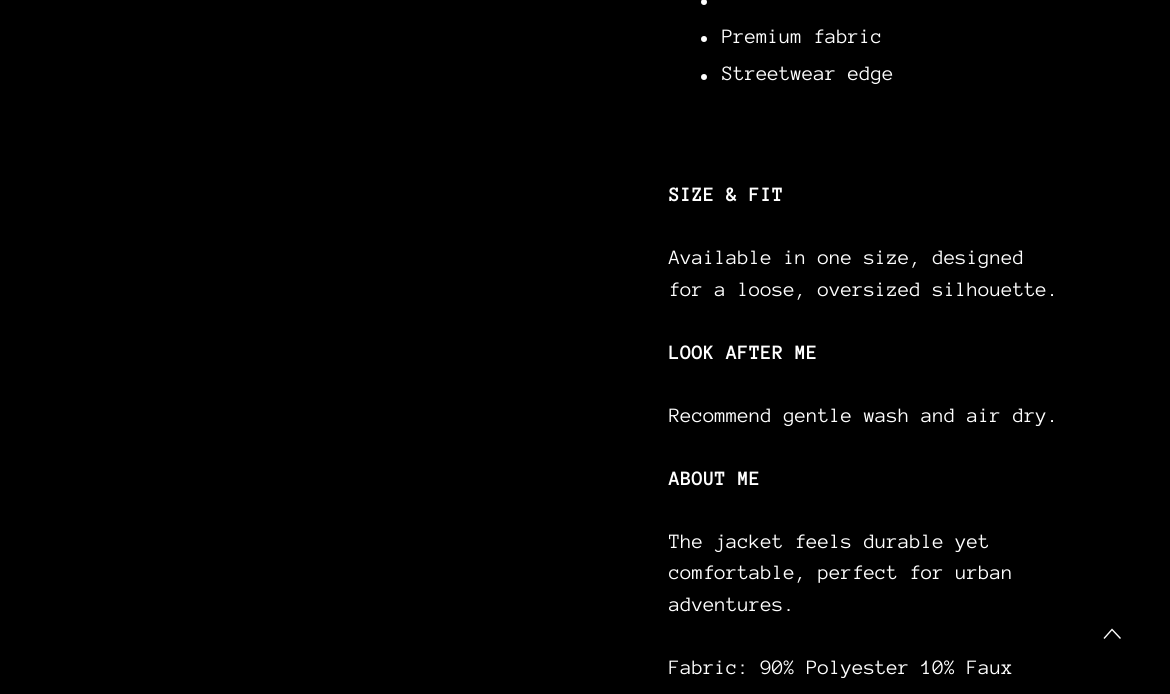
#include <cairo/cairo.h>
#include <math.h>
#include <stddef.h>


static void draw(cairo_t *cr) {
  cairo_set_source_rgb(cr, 0, 0, 0);
  cairo_paint(cr);
  cairo_set_source_rgb(cr, 1, 1, 1);
  cairo_arc(cr, 704, 2, 3, 0, 2 * M_PI);
  cairo_fill(cr);
  cairo_arc(cr, 704, 39, 3, 0, 2 * M_PI);
  cairo_fill(cr);
  cairo_arc(cr, 704, 77, 3, 0, 2 * M_PI);
  cairo_fill(cr);
  cairo_new_path(cr);
  cairo_move_to(cr, 1120, 639);
  cairo_line_to(cr, 1121, 638);
  cairo_line_to(cr, 1112, 628.5);
  cairo_line_to(cr, 1103.5, 638);
  cairo_line_to(cr, 1104.5, 639);
  cairo_line_to(cr, 1112, 630.5);
  cairo_close_path(cr);
  cairo_fill(cr);
  cairo_select_font_face(cr, "Anonymous Pro", CAIRO_FONT_SLANT_NORMAL, CAIRO_FONT_WEIGHT_NORMAL);
  cairo_set_font_size(cr, 21);
  cairo_move_to(cr, 722, 43);
  cairo_show_text(cr, "Premium fabric");
  cairo_move_to(cr, 722, 80);
  cairo_show_text(cr, "Streetwear edge");
  cairo_select_font_face(cr, "Anonymous Pro", CAIRO_FONT_SLANT_NORMAL, CAIRO_FONT_WEIGHT_BOLD);
  cairo_move_to(cr, 669, 201);
  cairo_show_text(cr, "SIZE & FIT");
  cairo_select_font_face(cr, "Anonymous Pro", CAIRO_FONT_SLANT_NORMAL, CAIRO_FONT_WEIGHT_NORMAL);
  cairo_move_to(cr, 669, 264);
  cairo_show_text(cr, "Available in one size, designed");
  cairo_move_to(cr, 669, 296);
  cairo_show_text(cr, "for a loose, oversized silhouette.");
  cairo_select_font_face(cr, "Anonymous Pro", CAIRO_FONT_SLANT_NORMAL, CAIRO_FONT_WEIGHT_BOLD);
  cairo_move_to(cr, 669, 359);
  cairo_show_text(cr, "LOOK AFTER ME");
  cairo_select_font_face(cr, "Anonymous Pro", CAIRO_FONT_SLANT_NORMAL, CAIRO_FONT_WEIGHT_NORMAL);
  cairo_move_to(cr, 669, 422);
  cairo_show_text(cr, "Recommend gentle wash and air dry.");
  cairo_select_font_face(cr, "Anonymous Pro", CAIRO_FONT_SLANT_NORMAL, CAIRO_FONT_WEIGHT_BOLD);
  cairo_move_to(cr, 669, 485);
  cairo_show_text(cr, "ABOUT ME");
  cairo_select_font_face(cr, "Anonymous Pro", CAIRO_FONT_SLANT_NORMAL, CAIRO_FONT_WEIGHT_NORMAL);
  cairo_move_to(cr, 669, 548);
  cairo_show_text(cr, "The jacket feels durable yet");
  cairo_move_to(cr, 669, 579);
  cairo_show_text(cr, "comfortable, perfect for urban");
  cairo_move_to(cr, 669, 611);
  cairo_show_text(cr, "adventures.");
  cairo_move_to(cr, 669, 674);
  cairo_show_text(cr, "Fabric: 90% Polyester 10% Faux");
}

int main(void) {
  cairo_surface_t *surface = cairo_image_surface_create(CAIRO_FORMAT_RGB24, 1170, 694);
  cairo_t *cr = cairo_create(surface);
  cairo_font_options_t *options = cairo_font_options_create();
  cairo_font_options_set_hint_metrics(options, CAIRO_HINT_METRICS_OFF);
  cairo_font_options_set_hint_style(options, CAIRO_HINT_STYLE_NONE);
  cairo_set_font_options(cr, options);
  cairo_set_miter_limit(cr, 4);
  draw(cr);
  cairo_surface_write_to_png(surface, "out.png");
  cairo_font_options_destroy(options);
  cairo_destroy(cr);
  cairo_surface_destroy(surface);
  return 0;
}
